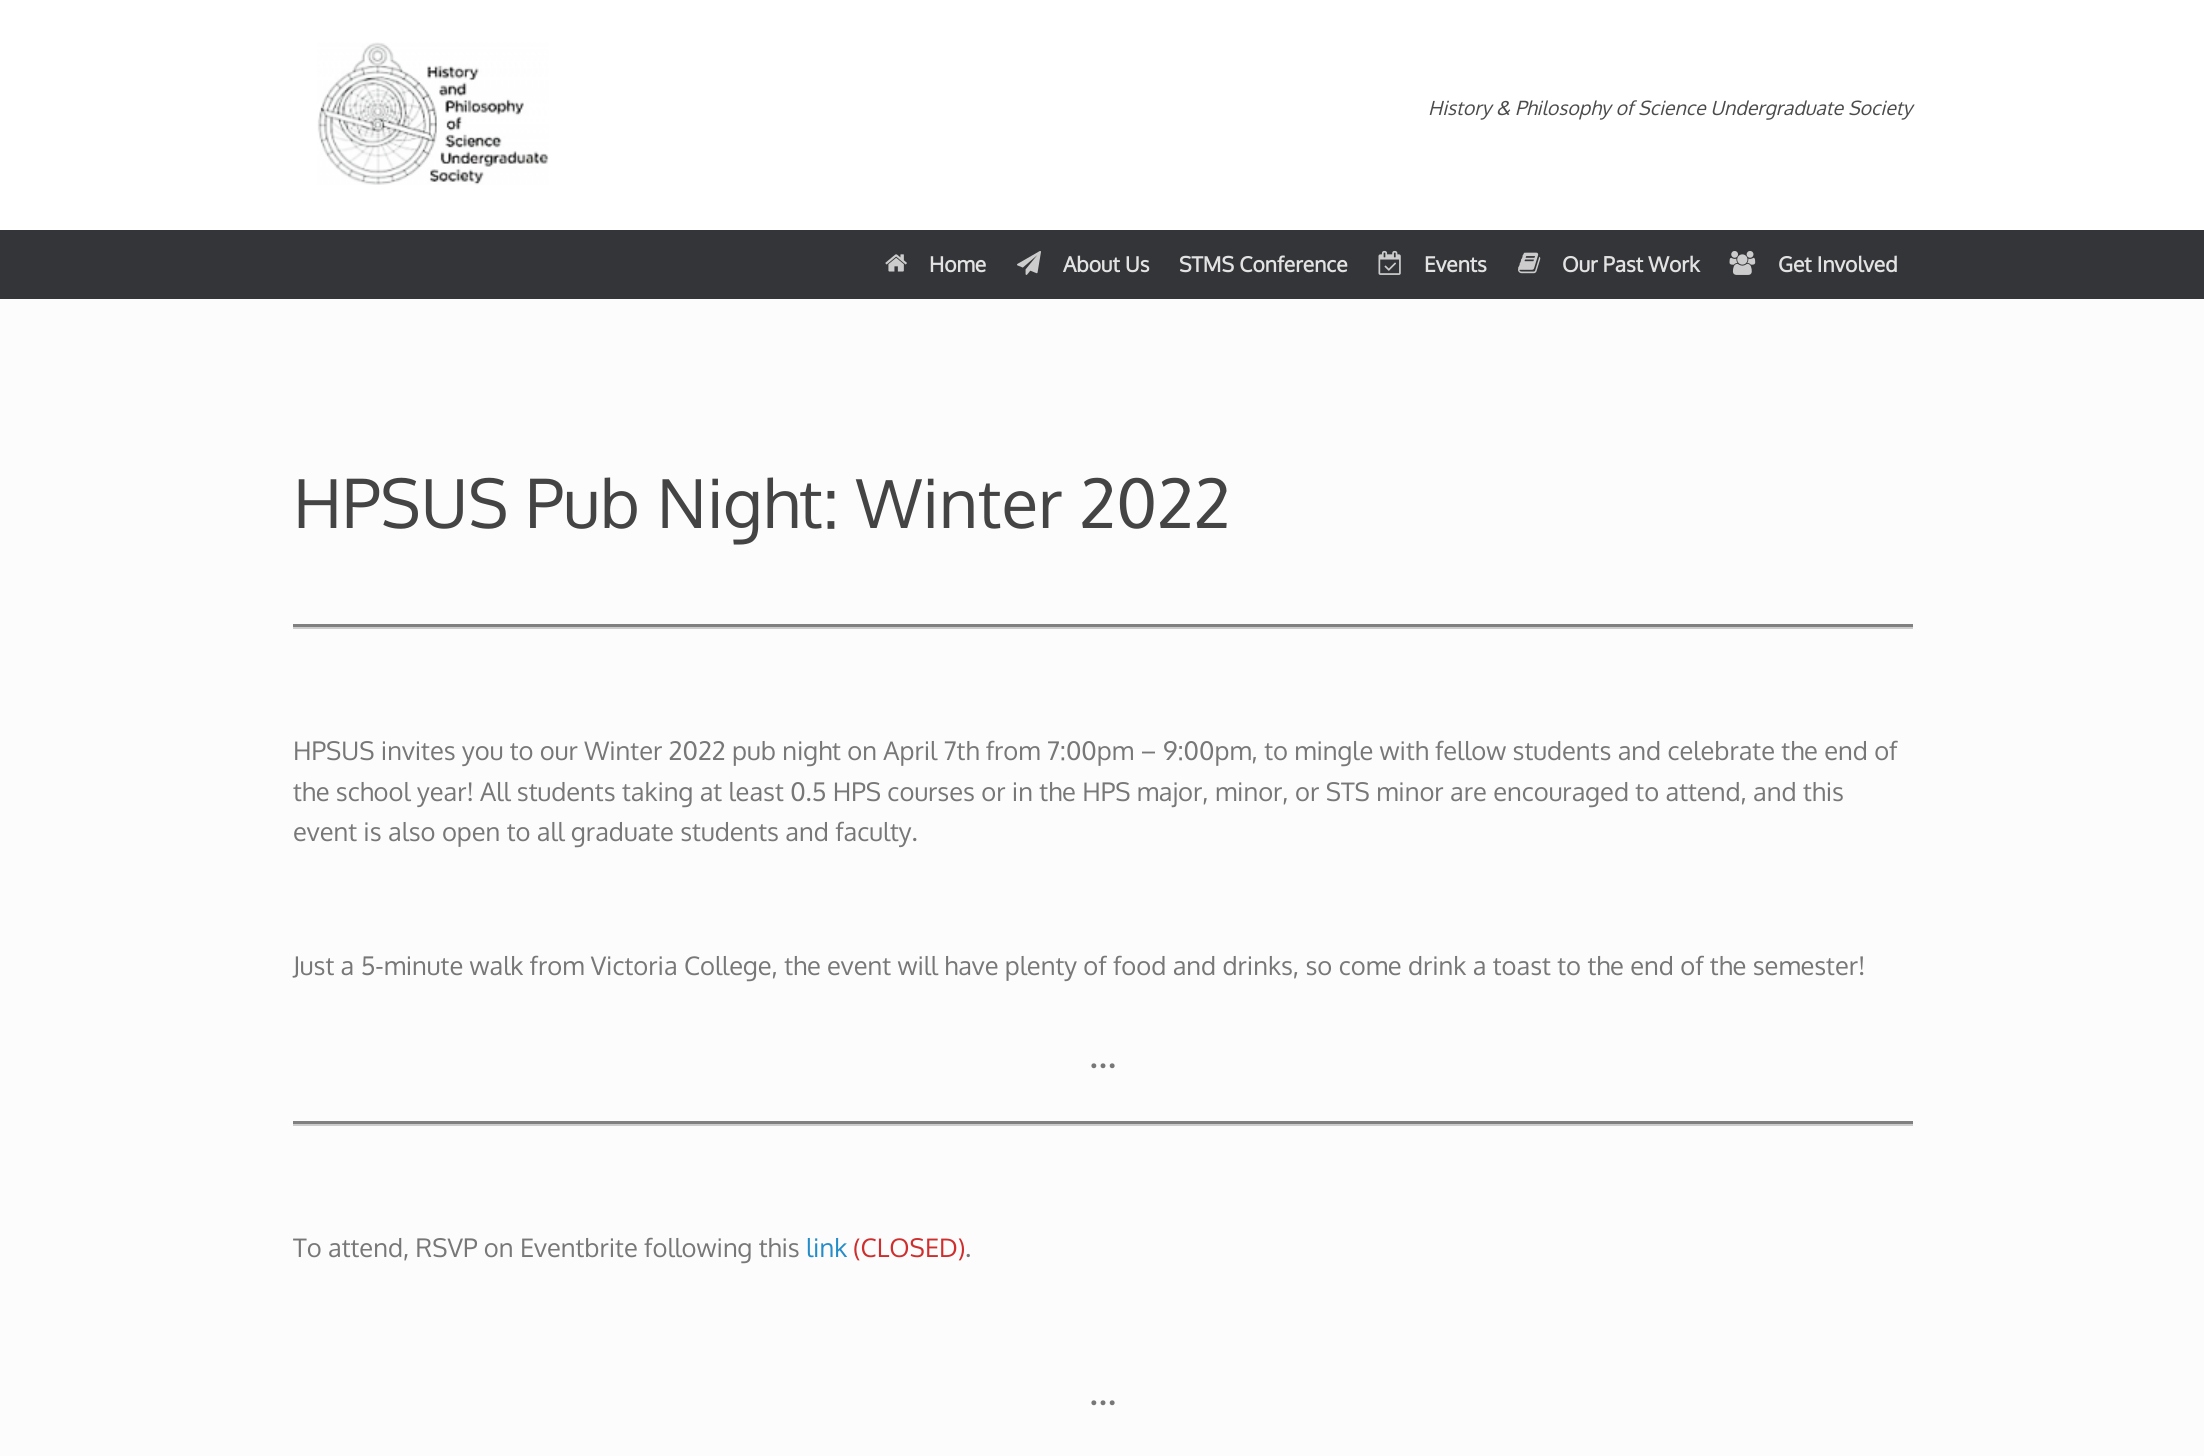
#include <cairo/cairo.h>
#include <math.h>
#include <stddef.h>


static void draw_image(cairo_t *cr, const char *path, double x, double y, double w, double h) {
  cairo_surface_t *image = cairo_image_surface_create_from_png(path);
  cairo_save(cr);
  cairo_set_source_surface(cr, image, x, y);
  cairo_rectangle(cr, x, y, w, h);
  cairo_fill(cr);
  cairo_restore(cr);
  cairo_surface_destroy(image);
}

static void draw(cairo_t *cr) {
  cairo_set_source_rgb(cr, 1, 1, 1);
  cairo_paint(cr);
  draw_image(cr, "images/1.png", 317, 42, 232, 143);
  cairo_set_source_rgb(cr, 52 / 255.0, 53 / 255.0, 56 / 255.0);
  cairo_rectangle(cr, 0, 230, 2204, 69);
  cairo_fill(cr);
  draw_image(cr, "images/2.png", 885, 254, 22, 18);
  draw_image(cr, "images/3.png", 1017, 251, 24, 24);
  draw_image(cr, "images/4.png", 1378, 250, 23, 25);
  draw_image(cr, "images/5.png", 1518, 252, 23, 22);
  draw_image(cr, "images/6.png", 1729, 251, 27, 24);
  cairo_set_source_rgb(cr, 252 / 255.0, 252 / 255.0, 252 / 255.0);
  cairo_rectangle(cr, 0, 299, 2204, 1157);
  cairo_fill(cr);
  cairo_set_source_rgb(cr, 204 / 255.0, 204 / 255.0, 204 / 255.0);
  cairo_rectangle(cr, 293, 627, 1620, 2);
  cairo_fill(cr);
  cairo_set_source_rgb(cr, 128 / 255.0, 128 / 255.0, 128 / 255.0);
  cairo_rectangle(cr, 293, 624, 1620, 3);
  cairo_fill(cr);
  cairo_set_source_rgb(cr, 204 / 255.0, 204 / 255.0, 204 / 255.0);
  cairo_rectangle(cr, 293, 1124, 1620, 2);
  cairo_fill(cr);
  cairo_set_source_rgb(cr, 128 / 255.0, 128 / 255.0, 128 / 255.0);
  cairo_rectangle(cr, 293, 1121, 1620, 3);
  cairo_fill(cr);
  cairo_select_font_face(cr, "Oxygen", CAIRO_FONT_SLANT_ITALIC, CAIRO_FONT_WEIGHT_NORMAL);
  cairo_set_font_size(cr, 19.5);
  cairo_set_source_rgb(cr, 75 / 255.0, 75 / 255.0, 75 / 255.0);
  cairo_move_to(cr, 1428, 115);
  cairo_show_text(cr, "History & Philosophy of Science Undergraduate Society");
  cairo_select_font_face(cr, "Oxygen", CAIRO_FONT_SLANT_NORMAL, CAIRO_FONT_WEIGHT_BOLD);
  cairo_set_font_size(cr, 21);
  cairo_set_source_rgb(cr, 226 / 255.0, 226 / 255.0, 226 / 255.0);
  cairo_move_to(cr, 929, 272);
  cairo_show_text(cr, "Home");
  cairo_move_to(cr, 1063, 272);
  cairo_show_text(cr, "About Us");
  cairo_move_to(cr, 1179, 272);
  cairo_show_text(cr, "STMS Conference");
  cairo_move_to(cr, 1424, 272);
  cairo_show_text(cr, "Events");
  cairo_move_to(cr, 1562, 272);
  cairo_show_text(cr, "Our Past Work");
  cairo_move_to(cr, 1778, 272);
  cairo_show_text(cr, "Get Involved");
  cairo_select_font_face(cr, "Oxygen", CAIRO_FONT_SLANT_NORMAL, CAIRO_FONT_WEIGHT_NORMAL);
  cairo_set_font_size(cr, 67.5);
  cairo_set_source_rgb(cr, 68 / 255.0, 68 / 255.0, 68 / 255.0);
  cairo_move_to(cr, 293, 528);
  cairo_show_text(cr, "HPSUS Pub Night: Winter 2022");
  cairo_set_font_size(cr, 25.5);
  cairo_set_source_rgb(cr, 119 / 255.0, 119 / 255.0, 119 / 255.0);
  cairo_move_to(cr, 293, 760);
  cairo_show_text(cr, "HPSUS invites you to our Winter 2022 pub night on April 7th from 7:00pm – 9:00pm, to mingle with fellow students and celebrate the end of");
  cairo_move_to(cr, 293, 801);
  cairo_show_text(cr, "the school year! All students taking at least 0.5 HPS courses or in the HPS major, minor, or STS minor are encouraged to attend, and this");
  cairo_move_to(cr, 293, 841);
  cairo_show_text(cr, "event is also open to all graduate students and faculty.");
  cairo_move_to(cr, 293, 975);
  cairo_show_text(cr, "Just a 5-minute walk from Victoria College, the event will have plenty of food and drinks, so come drink a toast to the end of the semester!");
  cairo_set_font_size(cr, 38);
  cairo_move_to(cr, 1089, 1068);
  cairo_show_text(cr, "…");
  cairo_set_font_size(cr, 25.5);
  cairo_move_to(cr, 293, 1257);
  cairo_show_text(cr, "To attend, RSVP on Eventbrite following this");
  cairo_set_source_rgb(cr, 36 / 255.0, 140 / 255.0, 200 / 255.0);
  cairo_move_to(cr, 806, 1257);
  cairo_show_text(cr, "link");
  cairo_set_source_rgb(cr, 207 / 255.0, 46 / 255.0, 46 / 255.0);
  cairo_move_to(cr, 853, 1257);
  cairo_show_text(cr, "(CLOSED)");
  cairo_set_source_rgb(cr, 119 / 255.0, 119 / 255.0, 119 / 255.0);
  cairo_move_to(cr, 965, 1257);
  cairo_show_text(cr, ".");
  cairo_set_font_size(cr, 38);
  cairo_move_to(cr, 1089, 1405);
  cairo_show_text(cr, "…");
}

int main(void) {
  cairo_surface_t *surface = cairo_image_surface_create(CAIRO_FORMAT_RGB24, 2204, 1456);
  cairo_t *cr = cairo_create(surface);
  cairo_font_options_t *options = cairo_font_options_create();
  cairo_font_options_set_hint_metrics(options, CAIRO_HINT_METRICS_OFF);
  cairo_font_options_set_hint_style(options, CAIRO_HINT_STYLE_NONE);
  cairo_set_font_options(cr, options);
  cairo_set_miter_limit(cr, 4);
  draw(cr);
  cairo_surface_write_to_png(surface, "out.png");
  cairo_font_options_destroy(options);
  cairo_destroy(cr);
  cairo_surface_destroy(surface);
  return 0;
}
